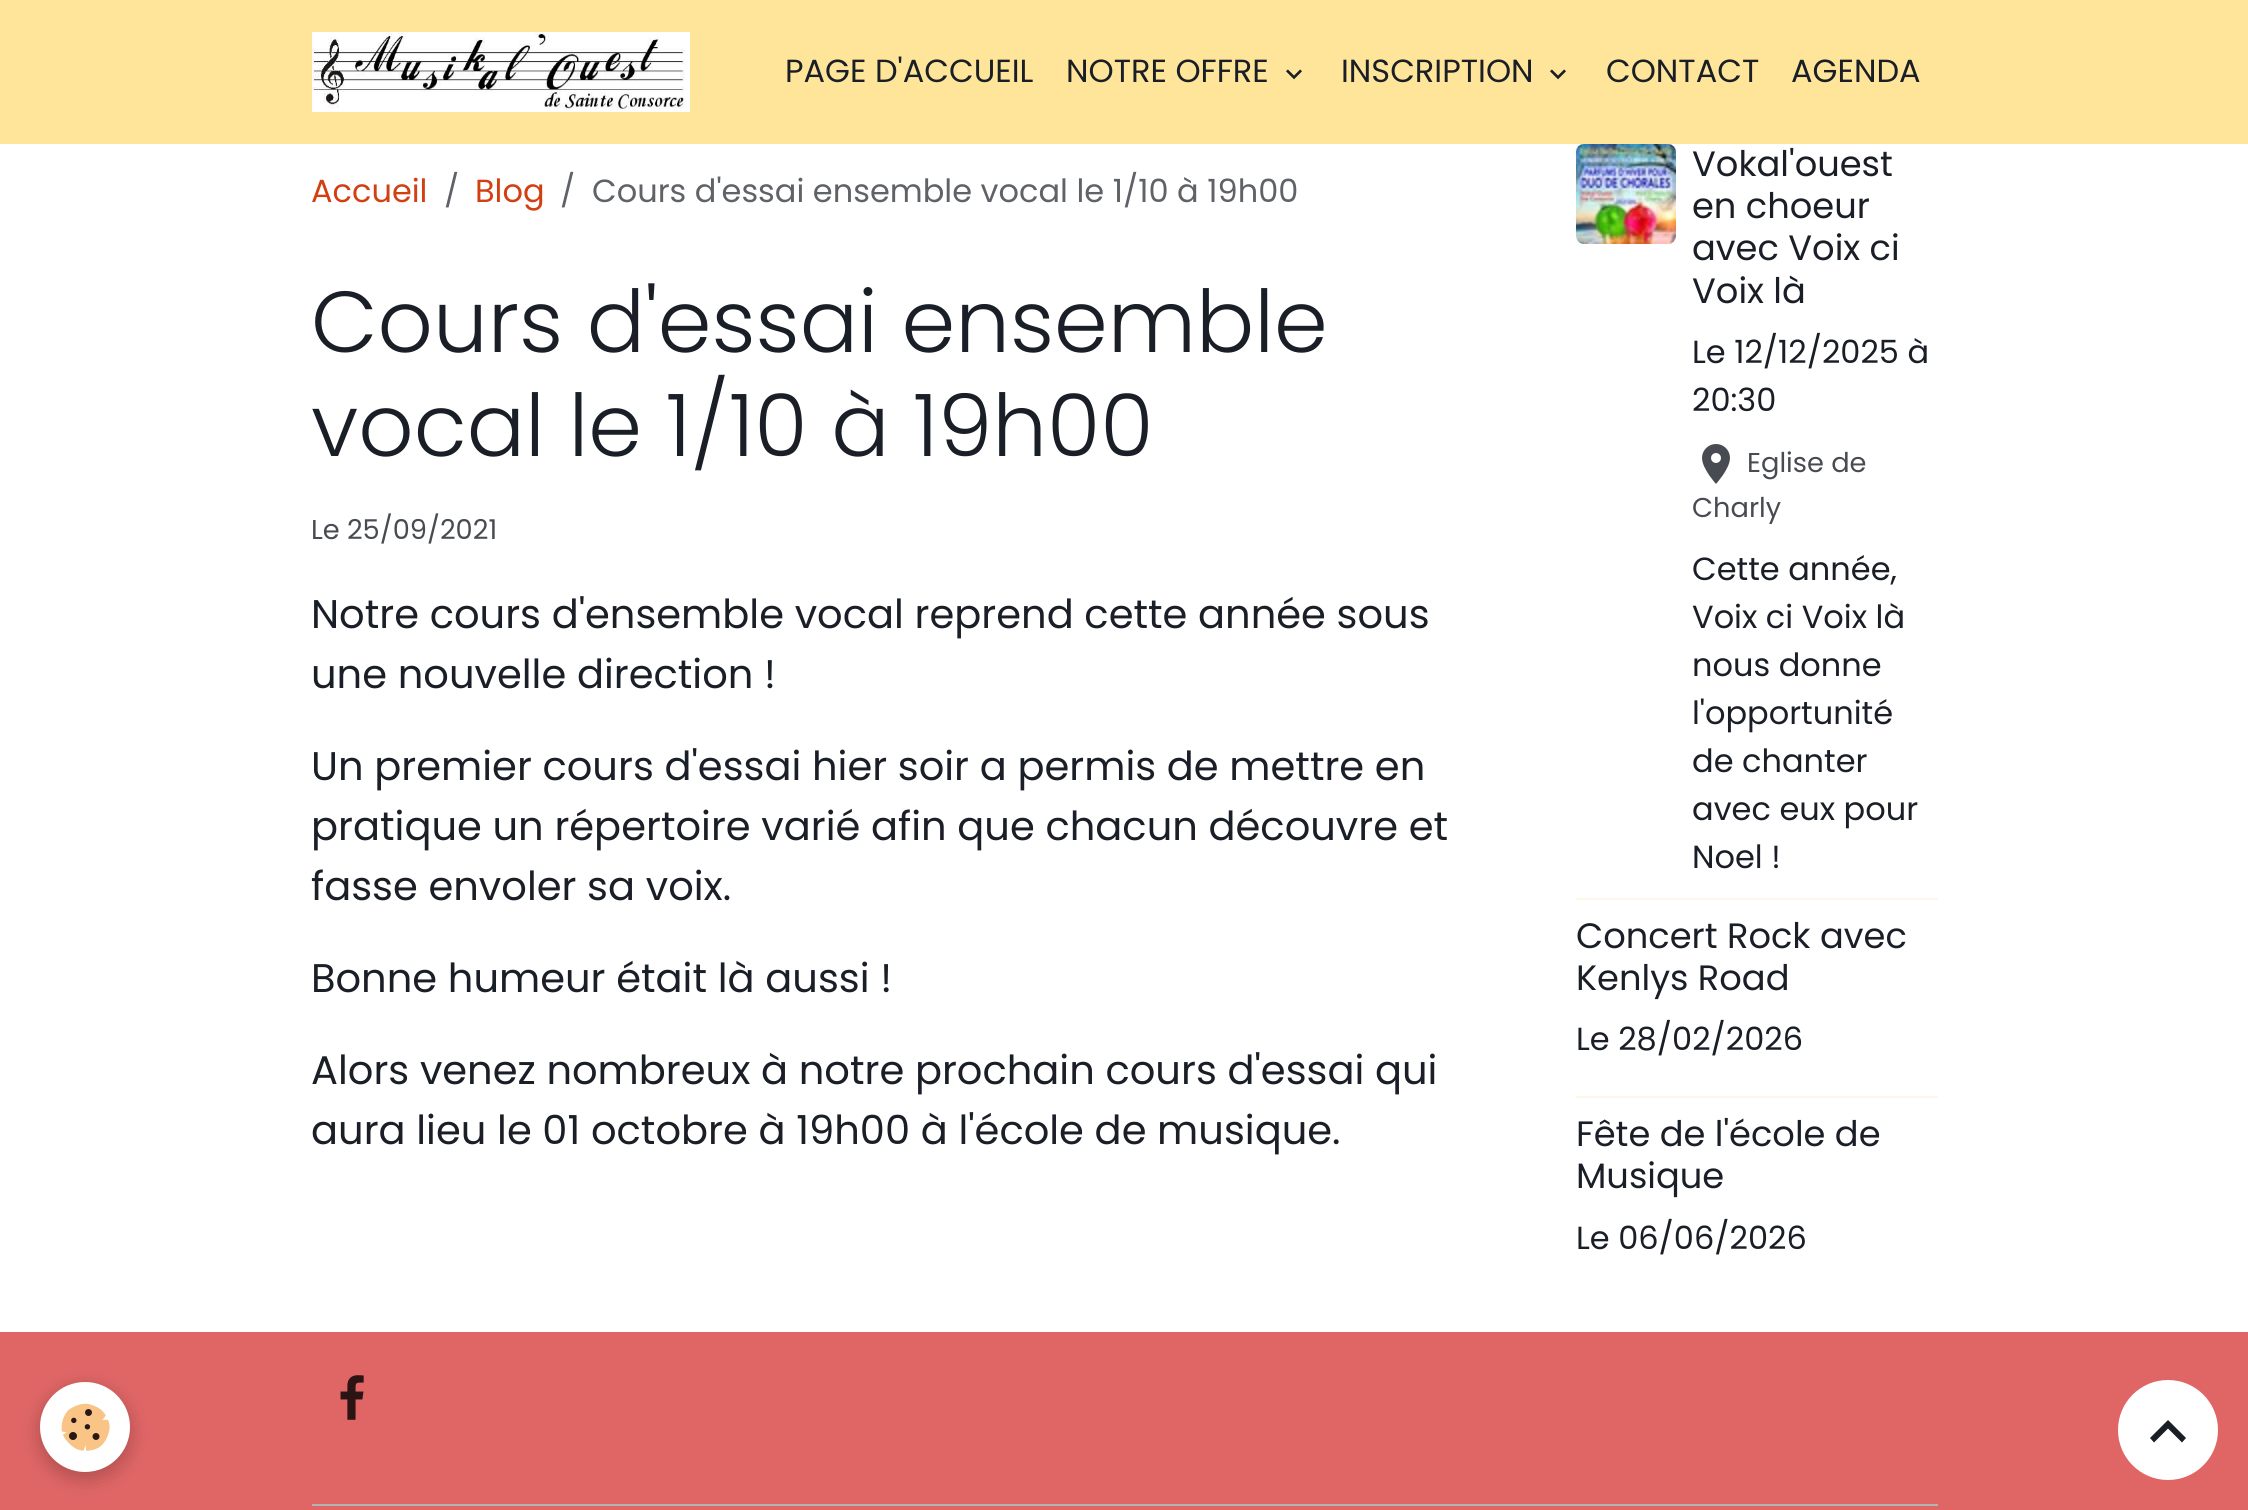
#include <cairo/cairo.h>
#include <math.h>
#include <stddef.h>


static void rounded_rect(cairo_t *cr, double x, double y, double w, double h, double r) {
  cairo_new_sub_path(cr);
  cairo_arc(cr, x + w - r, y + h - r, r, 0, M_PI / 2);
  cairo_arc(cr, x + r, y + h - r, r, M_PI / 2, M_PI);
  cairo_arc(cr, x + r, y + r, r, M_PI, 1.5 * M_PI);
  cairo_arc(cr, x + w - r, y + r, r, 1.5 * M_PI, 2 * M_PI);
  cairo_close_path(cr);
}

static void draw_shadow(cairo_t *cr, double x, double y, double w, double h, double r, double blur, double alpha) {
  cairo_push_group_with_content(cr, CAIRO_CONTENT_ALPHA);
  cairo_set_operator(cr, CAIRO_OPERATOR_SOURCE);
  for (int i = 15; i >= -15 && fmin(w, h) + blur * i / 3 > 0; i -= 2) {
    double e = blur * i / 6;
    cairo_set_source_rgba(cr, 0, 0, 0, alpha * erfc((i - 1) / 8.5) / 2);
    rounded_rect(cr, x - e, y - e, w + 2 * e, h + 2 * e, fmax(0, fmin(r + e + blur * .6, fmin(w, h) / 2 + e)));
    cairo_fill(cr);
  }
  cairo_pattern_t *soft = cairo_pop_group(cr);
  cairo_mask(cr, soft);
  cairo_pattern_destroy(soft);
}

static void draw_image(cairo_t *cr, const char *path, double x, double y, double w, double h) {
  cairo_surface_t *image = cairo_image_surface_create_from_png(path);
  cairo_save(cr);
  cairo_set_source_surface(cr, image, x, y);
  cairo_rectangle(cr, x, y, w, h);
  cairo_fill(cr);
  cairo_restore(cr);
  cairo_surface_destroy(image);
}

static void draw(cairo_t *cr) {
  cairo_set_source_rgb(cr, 1, 1, 1);
  cairo_paint(cr);
  cairo_set_source_rgb(cr, 1, 229 / 255.0, 153 / 255.0);
  cairo_rectangle(cr, 0, 0, 2248, 144);
  cairo_fill(cr);
  draw_image(cr, "images/1.png", 312, 32, 378, 80);
  draw_image(cr, "images/2.png", 1286, 69, 16, 11);
  draw_image(cr, "images/2.png", 1550, 69, 16, 11);
  draw_image(cr, "images/3.png", 1576, 144, 100, 100);
  draw_image(cr, "images/4.png", 1702, 444, 28, 40);
  cairo_set_source_rgb(cr, 254 / 255.0, 246 / 255.0, 233 / 255.0);
  cairo_rectangle(cr, 1576, 898, 362, 2);
  cairo_fill(cr);
  cairo_rectangle(cr, 1576, 1096, 362, 2);
  cairo_fill(cr);
  cairo_set_source_rgb(cr, 224 / 255.0, 102 / 255.0, 102 / 255.0);
  cairo_rectangle(cr, 0, 1332, 2248, 178);
  cairo_fill(cr);
  draw_image(cr, "images/5.png", 340, 1375, 24, 45);
  cairo_set_source_rgb(cr, 179 / 255.0, 179 / 255.0, 179 / 255.0);
  cairo_rectangle(cr, 312, 1504, 1626, 2);
  cairo_fill(cr);
  cairo_set_source_rgb(cr, 0, 0, 0);
  draw_shadow(cr, 40, 1388, 90, 90, 45, 10, 0.24);
  cairo_set_source_rgb(cr, 1, 1, 1);
  cairo_arc(cr, 85, 1427, 45, 0, 2 * M_PI);
  cairo_fill(cr);
  draw_image(cr, "images/6.png", 61, 1403, 49, 48);
  cairo_arc(cr, 2168, 1430, 50, 0, 2 * M_PI);
  cairo_fill(cr);
  cairo_set_source_rgb(cr, 26 / 255.0, 30 / 255.0, 38 / 255.0);
  cairo_new_path(cr);
  cairo_move_to(cr, 2168, 1420);
  cairo_line_to(cr, 2186, 1438);
  cairo_line_to(cr, 2182, 1442.5);
  cairo_line_to(cr, 2168, 1428.5);
  cairo_line_to(cr, 2154, 1442.5);
  cairo_line_to(cr, 2150, 1438);
  cairo_close_path(cr);
  cairo_fill(cr);
  cairo_select_font_face(cr, "Poppins", CAIRO_FONT_SLANT_NORMAL, CAIRO_FONT_WEIGHT_NORMAL);
  cairo_set_font_size(cr, 32);
  cairo_move_to(cr, 785, 82);
  cairo_show_text(cr, "PAGE D'ACCUEIL");
  cairo_move_to(cr, 1066, 82);
  cairo_show_text(cr, "NOTRE OFFRE");
  cairo_move_to(cr, 1341, 82);
  cairo_show_text(cr, "INSCRIPTION");
  cairo_move_to(cr, 1606, 82);
  cairo_show_text(cr, "CONTACT");
  cairo_move_to(cr, 1791, 82);
  cairo_show_text(cr, "AGENDA");
  cairo_set_source_rgb(cr, 210 / 255.0, 64 / 255.0, 17 / 255.0);
  cairo_move_to(cr, 311, 202);
  cairo_show_text(cr, "Accueil");
  cairo_set_source_rgb(cr, 95 / 255.0, 98 / 255.0, 103 / 255.0);
  cairo_move_to(cr, 444, 202);
  cairo_show_text(cr, "/");
  cairo_set_source_rgb(cr, 210 / 255.0, 64 / 255.0, 17 / 255.0);
  cairo_move_to(cr, 475, 202);
  cairo_show_text(cr, "Blog");
  cairo_set_source_rgb(cr, 95 / 255.0, 98 / 255.0, 103 / 255.0);
  cairo_move_to(cr, 560, 202);
  cairo_show_text(cr, "/");
  cairo_move_to(cr, 592, 202);
  cairo_show_text(cr, "Cours d'essai ensemble vocal le 1/10 à 19h00");
  cairo_select_font_face(cr, "Poppins Light", CAIRO_FONT_SLANT_NORMAL, CAIRO_FONT_WEIGHT_NORMAL);
  cairo_set_font_size(cr, 86.4);
  cairo_set_source_rgb(cr, 26 / 255.0, 30 / 255.0, 38 / 255.0);
  cairo_move_to(cr, 311, 352);
  cairo_show_text(cr, "Cours d'essai ensemble");
  cairo_move_to(cr, 311, 456);
  cairo_show_text(cr, "vocal le 1/10 à 19h00");
  cairo_select_font_face(cr, "Poppins", CAIRO_FONT_SLANT_NORMAL, CAIRO_FONT_WEIGHT_NORMAL);
  cairo_set_font_size(cr, 27.25);
  cairo_set_source_rgb(cr, 72 / 255.0, 75 / 255.0, 81 / 255.0);
  cairo_move_to(cr, 311, 539);
  cairo_show_text(cr, "Le 25/09/2021");
  cairo_set_font_size(cr, 40);
  cairo_set_source_rgb(cr, 26 / 255.0, 30 / 255.0, 38 / 255.0);
  cairo_move_to(cr, 311, 628);
  cairo_show_text(cr, "Notre cours d'ensemble vocal reprend cette année sous");
  cairo_move_to(cr, 311, 688);
  cairo_show_text(cr, "une nouvelle direction !");
  cairo_move_to(cr, 311, 780);
  cairo_show_text(cr, "Un premier cours d'essai hier soir a permis de mettre en");
  cairo_move_to(cr, 311, 840);
  cairo_show_text(cr, "pratique un répertoire varié afin que chacun découvre et");
  cairo_move_to(cr, 311, 900);
  cairo_show_text(cr, "fasse envoler sa voix.");
  cairo_move_to(cr, 311, 992);
  cairo_show_text(cr, "Bonne humeur était là aussi !");
  cairo_move_to(cr, 311, 1084);
  cairo_show_text(cr, "Alors venez nombreux à notre prochain cours d'essai qui");
  cairo_move_to(cr, 311, 1144);
  cairo_show_text(cr, "aura lieu le 01 octobre à 19h00 à l'école de musique.");
  cairo_set_font_size(cr, 35.25);
  cairo_move_to(cr, 1692, 176);
  cairo_show_text(cr, "Vokal'ouest");
  cairo_move_to(cr, 1692, 218);
  cairo_show_text(cr, "en choeur");
  cairo_move_to(cr, 1692, 260);
  cairo_show_text(cr, "avec Voix ci");
  cairo_move_to(cr, 1692, 303);
  cairo_show_text(cr, "Voix là");
  cairo_set_font_size(cr, 32);
  cairo_move_to(cr, 1692, 363);
  cairo_show_text(cr, "Le 12/12/2025 à");
  cairo_move_to(cr, 1692, 411);
  cairo_show_text(cr, "20:30");
  cairo_set_font_size(cr, 27.25);
  cairo_set_source_rgb(cr, 72 / 255.0, 75 / 255.0, 81 / 255.0);
  cairo_move_to(cr, 1747, 472);
  cairo_show_text(cr, "Eglise de");
  cairo_move_to(cr, 1692, 517);
  cairo_show_text(cr, "Charly");
  cairo_set_font_size(cr, 32);
  cairo_set_source_rgb(cr, 26 / 255.0, 30 / 255.0, 38 / 255.0);
  cairo_move_to(cr, 1692, 580);
  cairo_show_text(cr, "Cette année,");
  cairo_move_to(cr, 1692, 628);
  cairo_show_text(cr, "Voix ci Voix là");
  cairo_move_to(cr, 1692, 676);
  cairo_show_text(cr, "nous donne");
  cairo_move_to(cr, 1692, 724);
  cairo_show_text(cr, "l'opportunité");
  cairo_move_to(cr, 1692, 772);
  cairo_show_text(cr, "de chanter");
  cairo_move_to(cr, 1692, 820);
  cairo_show_text(cr, "avec eux pour");
  cairo_move_to(cr, 1692, 868);
  cairo_show_text(cr, "Noel !");
  cairo_set_font_size(cr, 35.25);
  cairo_move_to(cr, 1576, 948);
  cairo_show_text(cr, "Concert Rock avec");
  cairo_move_to(cr, 1576, 990);
  cairo_show_text(cr, "Kenlys Road");
  cairo_set_font_size(cr, 32);
  cairo_move_to(cr, 1576, 1050);
  cairo_show_text(cr, "Le 28/02/2026");
  cairo_set_font_size(cr, 35.25);
  cairo_move_to(cr, 1576, 1146);
  cairo_show_text(cr, "Fête de l'école de");
  cairo_move_to(cr, 1576, 1188);
  cairo_show_text(cr, "Musique");
  cairo_set_font_size(cr, 32);
  cairo_move_to(cr, 1576, 1249);
  cairo_show_text(cr, "Le 06/06/2026");
}

int main(void) {
  cairo_surface_t *surface = cairo_image_surface_create(CAIRO_FORMAT_RGB24, 2248, 1510);
  cairo_t *cr = cairo_create(surface);
  cairo_font_options_t *options = cairo_font_options_create();
  cairo_font_options_set_hint_metrics(options, CAIRO_HINT_METRICS_OFF);
  cairo_font_options_set_hint_style(options, CAIRO_HINT_STYLE_NONE);
  cairo_set_font_options(cr, options);
  cairo_set_miter_limit(cr, 4);
  draw(cr);
  cairo_surface_write_to_png(surface, "out.png");
  cairo_font_options_destroy(options);
  cairo_destroy(cr);
  cairo_surface_destroy(surface);
  return 0;
}
